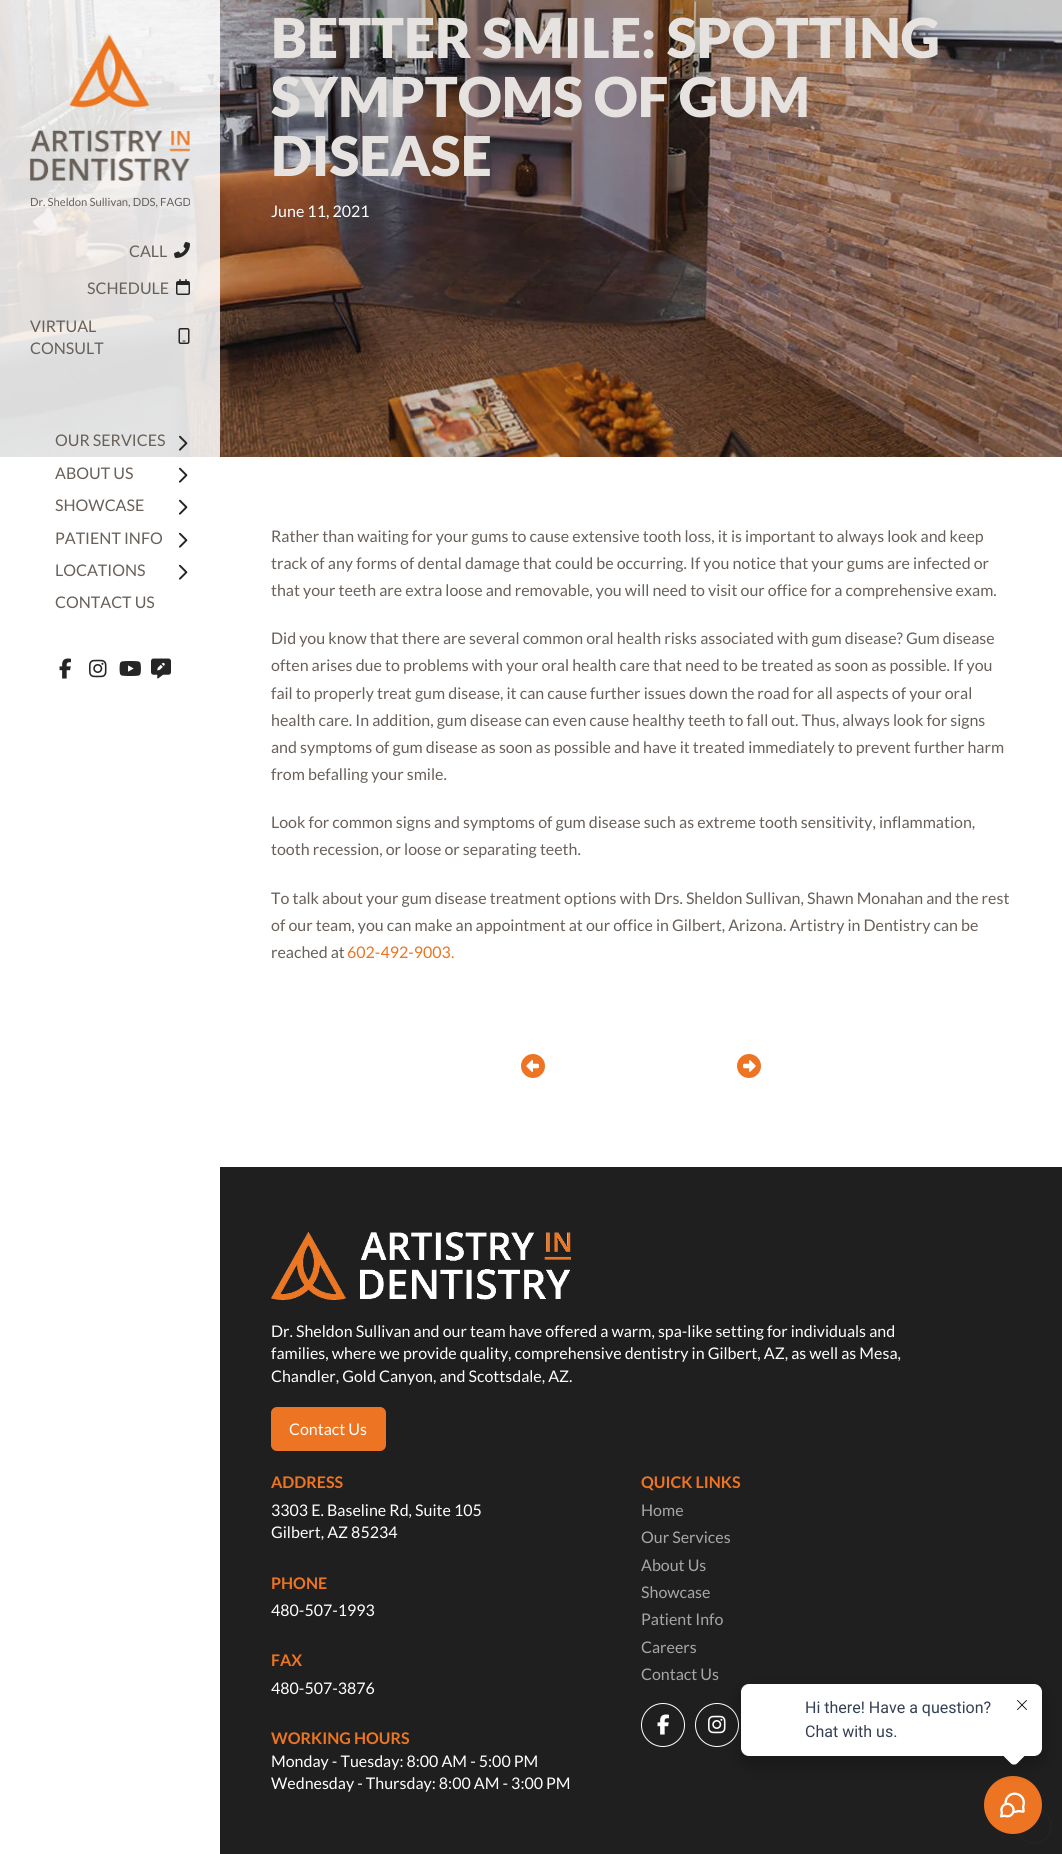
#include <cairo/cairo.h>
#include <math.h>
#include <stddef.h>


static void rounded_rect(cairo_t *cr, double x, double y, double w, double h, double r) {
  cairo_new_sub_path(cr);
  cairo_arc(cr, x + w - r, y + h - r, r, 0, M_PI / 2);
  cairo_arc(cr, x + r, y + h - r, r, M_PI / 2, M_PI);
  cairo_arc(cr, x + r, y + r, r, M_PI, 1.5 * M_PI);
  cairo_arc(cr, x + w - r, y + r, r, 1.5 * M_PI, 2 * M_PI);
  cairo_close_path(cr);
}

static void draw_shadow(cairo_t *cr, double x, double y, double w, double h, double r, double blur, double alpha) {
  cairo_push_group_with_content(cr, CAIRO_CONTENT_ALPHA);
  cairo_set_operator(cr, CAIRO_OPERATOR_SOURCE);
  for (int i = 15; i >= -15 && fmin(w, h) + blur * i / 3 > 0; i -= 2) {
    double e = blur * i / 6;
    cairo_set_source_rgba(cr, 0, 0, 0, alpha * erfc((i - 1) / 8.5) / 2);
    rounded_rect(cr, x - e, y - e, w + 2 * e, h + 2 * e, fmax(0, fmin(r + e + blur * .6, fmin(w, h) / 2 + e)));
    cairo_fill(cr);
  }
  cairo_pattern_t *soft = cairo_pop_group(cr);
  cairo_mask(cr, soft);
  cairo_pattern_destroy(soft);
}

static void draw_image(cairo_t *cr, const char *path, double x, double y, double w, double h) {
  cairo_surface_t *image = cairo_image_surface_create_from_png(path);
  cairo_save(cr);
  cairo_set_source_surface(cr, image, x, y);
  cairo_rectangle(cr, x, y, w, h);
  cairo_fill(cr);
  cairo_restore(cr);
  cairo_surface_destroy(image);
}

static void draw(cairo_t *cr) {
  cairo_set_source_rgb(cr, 1, 1, 1);
  cairo_paint(cr);
  draw_image(cr, "images/11.png", 0, 0, 1062, 457);
  cairo_set_source_rgba(cr, 1, 1, 1, 0.85);
  cairo_rectangle(cr, 0, 0, 220, 457);
  cairo_fill(cr);
  draw_image(cr, "images/1.png", 30, 35, 160, 146);
  draw_image(cr, "images/2.png", 174, 242, 16, 16);
  draw_image(cr, "images/3.png", 176, 279, 14, 16);
  draw_image(cr, "images/4.png", 178, 328, 12, 16);
  draw_image(cr, "images/5.png", 179, 435, 9, 16);
  draw_image(cr, "images/6.png", 179, 467, 9, 16);
  draw_image(cr, "images/6.png", 179, 499, 9, 16);
  draw_image(cr, "images/6.png", 179, 532, 9, 16);
  draw_image(cr, "images/6.png", 179, 564, 9, 16);
  draw_image(cr, "images/7.png", 59, 658, 12, 21);
  draw_image(cr, "images/8.png", 89, 659, 18, 19);
  draw_image(cr, "images/9.png", 119, 661, 22, 15);
  draw_image(cr, "images/10.png", 151, 658, 20, 21);
  draw_image(cr, "images/12.png", 521, 1054, 24, 24);
  draw_image(cr, "images/13.png", 737, 1054, 24, 24);
  cairo_set_source_rgb(cr, 31 / 255.0, 31 / 255.0, 31 / 255.0);
  cairo_rectangle(cr, 220, 1167, 842, 687);
  cairo_fill(cr);
  draw_image(cr, "images/14.png", 271, 1232, 300, 68);
  cairo_set_source_rgb(cr, 237 / 255.0, 116 / 255.0, 34 / 255.0);
  rounded_rect(cr, 271, 1407, 115, 44, 6);
  cairo_fill(cr);
  cairo_arc(cr, 663, 1725, 21.5, 0, 2 * M_PI);
  cairo_set_source_rgb(cr, 1, 1, 1);
  cairo_set_line_width(cr, 1);
  cairo_stroke(cr);
  draw_image(cr, "images/15.png", 657, 1714, 12, 21);
  cairo_arc(cr, 717, 1725, 21.5, 0, 2 * M_PI);
  cairo_stroke(cr);
  draw_image(cr, "images/16.png", 708, 1715, 18, 19);
  cairo_arc(cr, 1034.5, 1826.5, 16.5, 0, 2 * M_PI);
  cairo_set_source_rgb(cr, 34 / 255.0, 34 / 255.0, 34 / 255.0);
  cairo_set_line_width(cr, 2);
  cairo_stroke(cr);
  cairo_set_source_rgb(cr, 237 / 255.0, 116 / 255.0, 34 / 255.0);
  cairo_arc(cr, 1013, 1805, 29, 0, 2 * M_PI);
  cairo_fill(cr);
  draw_image(cr, "images/18.png", 1000, 1792, 25, 26);
  cairo_set_source_rgb(cr, 0, 0, 0);
  draw_shadow(cr, 741, 1692, 301, 72, 8, 10, 0.24);
  cairo_set_source_rgb(cr, 1, 1, 1);
  rounded_rect(cr, 741, 1684, 301, 72, 8);
  cairo_fill(cr);
  cairo_new_path(cr);
  cairo_move_to(cr, 1017, 1740.5);
  cairo_line_to(cr, 1025.5, 1749);
  cairo_curve_to(cr, 1027, 1750.5, 1027, 1753.5, 1025.5, 1755);
  cairo_line_to(cr, 1017, 1763.5);
  cairo_curve_to(cr, 1015.5, 1765, 1012.5, 1765, 1011, 1763.5);
  cairo_line_to(cr, 1002.5, 1755);
  cairo_curve_to(cr, 1001, 1753.5, 1001, 1750.5, 1002.5, 1749);
  cairo_line_to(cr, 1011, 1740.5);
  cairo_curve_to(cr, 1012.5, 1739, 1015.5, 1739, 1017, 1740.5);
  cairo_close_path(cr);
  cairo_fill(cr);
  draw_image(cr, "images/17.png", 1017, 1700, 10, 10);
  cairo_select_font_face(cr, "Lato", CAIRO_FONT_SLANT_NORMAL, CAIRO_FONT_WEIGHT_NORMAL);
  cairo_set_font_size(cr, 11.25);
  cairo_set_source_rgb(cr, 104 / 255.0, 96 / 255.0, 89 / 255.0);
  cairo_move_to(cr, 30, 206);
  cairo_show_text(cr, "Dr. Sheldon Sullivan, DDS, FAGD");
  cairo_set_font_size(cr, 16);
  cairo_move_to(cr, 129, 257);
  cairo_show_text(cr, "CALL");
  cairo_move_to(cr, 87, 294);
  cairo_show_text(cr, "SCHEDULE");
  cairo_move_to(cr, 30, 332);
  cairo_show_text(cr, "VIRTUAL");
  cairo_move_to(cr, 30, 354);
  cairo_show_text(cr, "CONSULT");
  cairo_move_to(cr, 55, 446);
  cairo_show_text(cr, "OUR SERVICES");
  cairo_move_to(cr, 55, 479);
  cairo_show_text(cr, "ABOUT US");
  cairo_move_to(cr, 55, 511);
  cairo_show_text(cr, "SHOWCASE");
  cairo_move_to(cr, 55, 544);
  cairo_show_text(cr, "PATIENT INFO");
  cairo_move_to(cr, 55, 576);
  cairo_show_text(cr, "LOCATIONS");
  cairo_move_to(cr, 55, 608);
  cairo_show_text(cr, "CONTACT US");
  cairo_select_font_face(cr, "Lato Black", CAIRO_FONT_SLANT_NORMAL, CAIRO_FONT_WEIGHT_NORMAL);
  cairo_set_font_size(cr, 55);
  cairo_set_source_rgb(cr, 229 / 255.0, 226 / 255.0, 224 / 255.0);
  cairo_move_to(cr, 271, 58);
  cairo_show_text(cr, "BETTER SMILE: SPOTTING");
  cairo_move_to(cr, 271, 117);
  cairo_show_text(cr, "SYMPTOMS OF GUM");
  cairo_move_to(cr, 271, 176);
  cairo_show_text(cr, "DISEASE");
  cairo_select_font_face(cr, "Lato", CAIRO_FONT_SLANT_NORMAL, CAIRO_FONT_WEIGHT_NORMAL);
  cairo_set_font_size(cr, 16);
  cairo_set_source_rgb(cr, 1, 1, 1);
  cairo_move_to(cr, 271, 217);
  cairo_show_text(cr, "June 11, 2021");
  cairo_set_source_rgb(cr, 104 / 255.0, 96 / 255.0, 89 / 255.0);
  cairo_move_to(cr, 271, 542);
  cairo_show_text(cr, "Rather than waiting for your gums to cause extensive tooth loss, it is important to always look and keep");
  cairo_move_to(cr, 271, 569);
  cairo_show_text(cr, "track of any forms of dental damage that could be occurring. If you notice that your gums are infected or");
  cairo_move_to(cr, 271, 596);
  cairo_show_text(cr, "that your teeth are extra loose and removable, you will need to visit our office for a comprehensive exam.");
  cairo_move_to(cr, 271, 644);
  cairo_show_text(cr, "Did you know that there are several common oral health risks associated with gum disease? Gum disease");
  cairo_move_to(cr, 271, 671);
  cairo_show_text(cr, "often arises due to problems with your oral health care that need to be treated as soon as possible. If you");
  cairo_move_to(cr, 271, 699);
  cairo_show_text(cr, "fail to properly treat gum disease, it can cause further issues down the road for all aspects of your oral");
  cairo_move_to(cr, 271, 726);
  cairo_show_text(cr, "health care. In addition, gum disease can even cause healthy teeth to fall out. Thus, always look for signs");
  cairo_move_to(cr, 271, 753);
  cairo_show_text(cr, "and symptoms of gum disease as soon as possible and have it treated immediately to prevent further harm");
  cairo_move_to(cr, 271, 780);
  cairo_show_text(cr, "from befalling your smile.");
  cairo_move_to(cr, 271, 828);
  cairo_show_text(cr, "Look for common signs and symptoms of gum disease such as extreme tooth sensitivity, inflammation,");
  cairo_move_to(cr, 271, 855);
  cairo_show_text(cr, "tooth recession, or loose or separating teeth.");
  cairo_move_to(cr, 271, 904);
  cairo_show_text(cr, "To talk about your gum disease treatment options with Drs. Sheldon Sullivan, Shawn Monahan and the rest");
  cairo_move_to(cr, 271, 931);
  cairo_show_text(cr, "of our team, you can make an appointment at our office in Gilbert, Arizona. Artistry in Dentistry can be");
  cairo_move_to(cr, 271, 958);
  cairo_show_text(cr, "reached at");
  cairo_set_source_rgb(cr, 237 / 255.0, 116 / 255.0, 34 / 255.0);
  cairo_move_to(cr, 347, 958);
  cairo_show_text(cr, "602-492-9003.");
  cairo_set_source_rgb(cr, 1, 1, 1);
  cairo_move_to(cr, 271, 1337);
  cairo_show_text(cr, "Dr. Sheldon Sullivan and our team have offered a warm, spa-like setting for individuals and");
  cairo_move_to(cr, 271, 1359);
  cairo_show_text(cr, "families, where we provide quality, comprehensive dentistry in Gilbert, AZ, as well as Mesa,");
  cairo_move_to(cr, 271, 1382);
  cairo_show_text(cr, "Chandler, Gold Canyon, and Scottsdale, AZ.");
  cairo_move_to(cr, 289, 1435);
  cairo_show_text(cr, "Contact Us");
  cairo_select_font_face(cr, "Lato", CAIRO_FONT_SLANT_NORMAL, CAIRO_FONT_WEIGHT_BOLD);
  cairo_set_source_rgb(cr, 237 / 255.0, 116 / 255.0, 34 / 255.0);
  cairo_move_to(cr, 271, 1488);
  cairo_show_text(cr, "ADDRESS");
  cairo_select_font_face(cr, "Lato", CAIRO_FONT_SLANT_NORMAL, CAIRO_FONT_WEIGHT_NORMAL);
  cairo_set_source_rgb(cr, 1, 1, 1);
  cairo_move_to(cr, 271, 1516);
  cairo_show_text(cr, "3303 E. Baseline Rd, Suite 105");
  cairo_move_to(cr, 271, 1538);
  cairo_show_text(cr, "Gilbert, AZ 85234");
  cairo_select_font_face(cr, "Lato", CAIRO_FONT_SLANT_NORMAL, CAIRO_FONT_WEIGHT_BOLD);
  cairo_set_source_rgb(cr, 237 / 255.0, 116 / 255.0, 34 / 255.0);
  cairo_move_to(cr, 271, 1589);
  cairo_show_text(cr, "PHONE");
  cairo_select_font_face(cr, "Lato", CAIRO_FONT_SLANT_NORMAL, CAIRO_FONT_WEIGHT_NORMAL);
  cairo_set_source_rgb(cr, 1, 1, 1);
  cairo_move_to(cr, 271, 1616);
  cairo_show_text(cr, "480-507-1993");
  cairo_select_font_face(cr, "Lato", CAIRO_FONT_SLANT_NORMAL, CAIRO_FONT_WEIGHT_BOLD);
  cairo_set_source_rgb(cr, 237 / 255.0, 116 / 255.0, 34 / 255.0);
  cairo_move_to(cr, 271, 1666);
  cairo_show_text(cr, "FAX");
  cairo_select_font_face(cr, "Lato", CAIRO_FONT_SLANT_NORMAL, CAIRO_FONT_WEIGHT_NORMAL);
  cairo_set_source_rgb(cr, 1, 1, 1);
  cairo_move_to(cr, 271, 1694);
  cairo_show_text(cr, "480-507-3876");
  cairo_select_font_face(cr, "Lato", CAIRO_FONT_SLANT_NORMAL, CAIRO_FONT_WEIGHT_BOLD);
  cairo_set_source_rgb(cr, 237 / 255.0, 116 / 255.0, 34 / 255.0);
  cairo_move_to(cr, 271, 1744);
  cairo_show_text(cr, "WORKING HOURS");
  cairo_select_font_face(cr, "Lato", CAIRO_FONT_SLANT_NORMAL, CAIRO_FONT_WEIGHT_NORMAL);
  cairo_set_source_rgb(cr, 1, 1, 1);
  cairo_move_to(cr, 271, 1767);
  cairo_show_text(cr, "Monday - Tuesday: 8:00 AM - 5:00 PM");
  cairo_move_to(cr, 271, 1789);
  cairo_show_text(cr, "Wednesday - Thursday: 8:00 AM - 3:00 PM");
  cairo_select_font_face(cr, "Lato", CAIRO_FONT_SLANT_NORMAL, CAIRO_FONT_WEIGHT_BOLD);
  cairo_set_source_rgb(cr, 237 / 255.0, 116 / 255.0, 34 / 255.0);
  cairo_move_to(cr, 641, 1488);
  cairo_show_text(cr, "QUICK LINKS");
  cairo_select_font_face(cr, "Lato", CAIRO_FONT_SLANT_NORMAL, CAIRO_FONT_WEIGHT_NORMAL);
  cairo_set_source_rgb(cr, 167 / 255.0, 167 / 255.0, 167 / 255.0);
  cairo_move_to(cr, 641, 1516);
  cairo_show_text(cr, "Home");
  cairo_move_to(cr, 641, 1543);
  cairo_show_text(cr, "Our Services");
  cairo_move_to(cr, 641, 1571);
  cairo_show_text(cr, "About Us");
  cairo_move_to(cr, 641, 1598);
  cairo_show_text(cr, "Showcase");
  cairo_move_to(cr, 641, 1625);
  cairo_show_text(cr, "Patient Info");
  cairo_move_to(cr, 641, 1653);
  cairo_show_text(cr, "Careers");
  cairo_move_to(cr, 641, 1680);
  cairo_show_text(cr, "Contact Us");
  cairo_select_font_face(cr, "Roboto", CAIRO_FONT_SLANT_NORMAL, CAIRO_FONT_WEIGHT_NORMAL);
  cairo_set_source_rgb(cr, 52 / 255.0, 64 / 255.0, 84 / 255.0);
  cairo_move_to(cr, 805, 1713);
  cairo_show_text(cr, "Hi there! Have a question?");
  cairo_move_to(cr, 805, 1737);
  cairo_show_text(cr, "Chat with us.");
}

int main(void) {
  cairo_surface_t *surface = cairo_image_surface_create(CAIRO_FORMAT_RGB24, 1062, 1854);
  cairo_t *cr = cairo_create(surface);
  cairo_font_options_t *options = cairo_font_options_create();
  cairo_font_options_set_hint_metrics(options, CAIRO_HINT_METRICS_OFF);
  cairo_font_options_set_hint_style(options, CAIRO_HINT_STYLE_NONE);
  cairo_set_font_options(cr, options);
  cairo_set_miter_limit(cr, 4);
  draw(cr);
  cairo_surface_write_to_png(surface, "out.png");
  cairo_font_options_destroy(options);
  cairo_destroy(cr);
  cairo_surface_destroy(surface);
  return 0;
}
